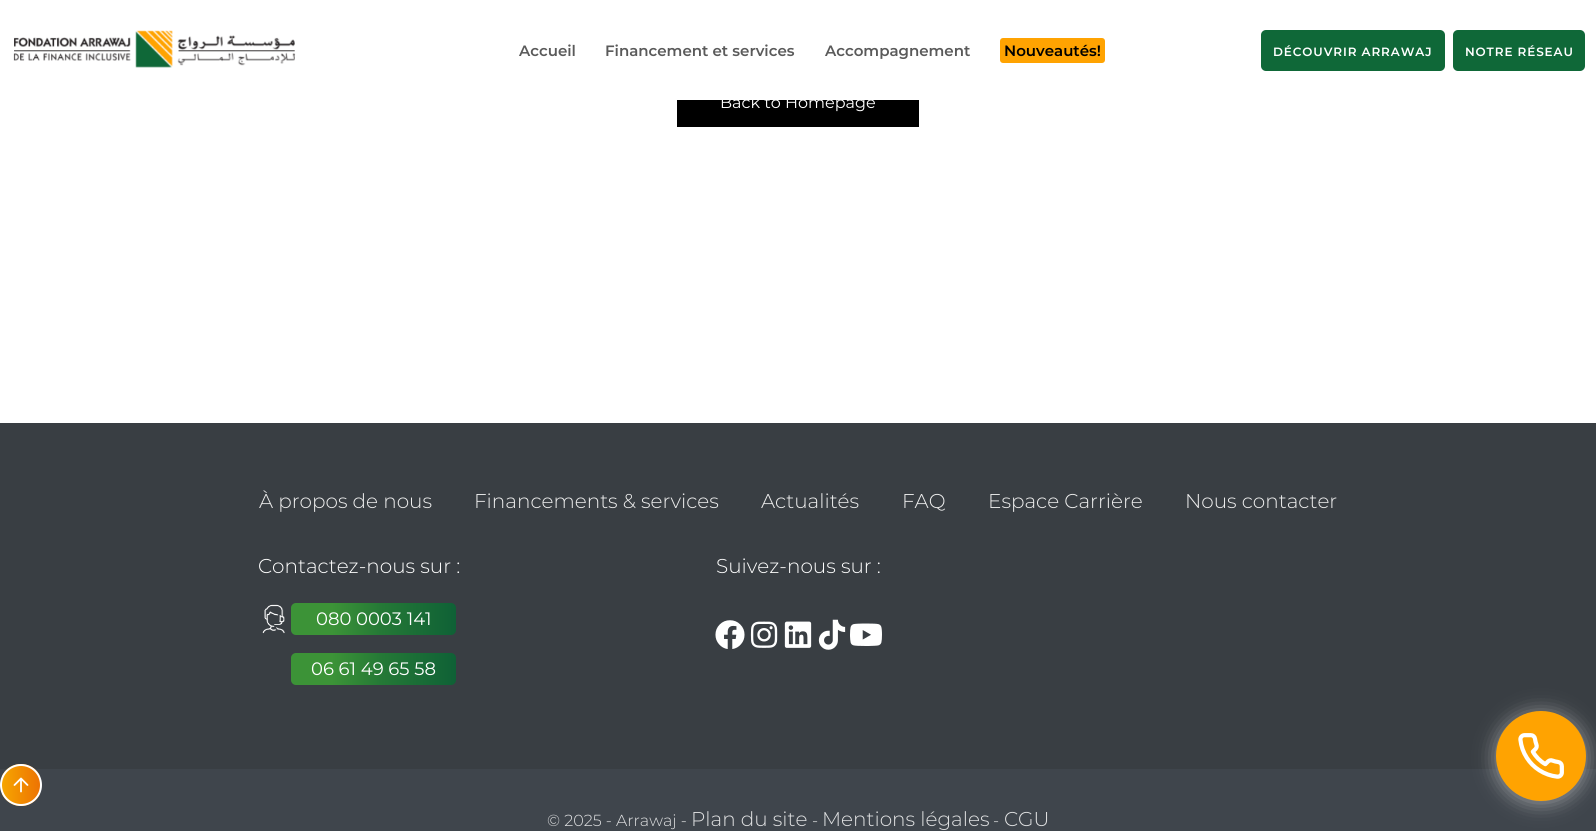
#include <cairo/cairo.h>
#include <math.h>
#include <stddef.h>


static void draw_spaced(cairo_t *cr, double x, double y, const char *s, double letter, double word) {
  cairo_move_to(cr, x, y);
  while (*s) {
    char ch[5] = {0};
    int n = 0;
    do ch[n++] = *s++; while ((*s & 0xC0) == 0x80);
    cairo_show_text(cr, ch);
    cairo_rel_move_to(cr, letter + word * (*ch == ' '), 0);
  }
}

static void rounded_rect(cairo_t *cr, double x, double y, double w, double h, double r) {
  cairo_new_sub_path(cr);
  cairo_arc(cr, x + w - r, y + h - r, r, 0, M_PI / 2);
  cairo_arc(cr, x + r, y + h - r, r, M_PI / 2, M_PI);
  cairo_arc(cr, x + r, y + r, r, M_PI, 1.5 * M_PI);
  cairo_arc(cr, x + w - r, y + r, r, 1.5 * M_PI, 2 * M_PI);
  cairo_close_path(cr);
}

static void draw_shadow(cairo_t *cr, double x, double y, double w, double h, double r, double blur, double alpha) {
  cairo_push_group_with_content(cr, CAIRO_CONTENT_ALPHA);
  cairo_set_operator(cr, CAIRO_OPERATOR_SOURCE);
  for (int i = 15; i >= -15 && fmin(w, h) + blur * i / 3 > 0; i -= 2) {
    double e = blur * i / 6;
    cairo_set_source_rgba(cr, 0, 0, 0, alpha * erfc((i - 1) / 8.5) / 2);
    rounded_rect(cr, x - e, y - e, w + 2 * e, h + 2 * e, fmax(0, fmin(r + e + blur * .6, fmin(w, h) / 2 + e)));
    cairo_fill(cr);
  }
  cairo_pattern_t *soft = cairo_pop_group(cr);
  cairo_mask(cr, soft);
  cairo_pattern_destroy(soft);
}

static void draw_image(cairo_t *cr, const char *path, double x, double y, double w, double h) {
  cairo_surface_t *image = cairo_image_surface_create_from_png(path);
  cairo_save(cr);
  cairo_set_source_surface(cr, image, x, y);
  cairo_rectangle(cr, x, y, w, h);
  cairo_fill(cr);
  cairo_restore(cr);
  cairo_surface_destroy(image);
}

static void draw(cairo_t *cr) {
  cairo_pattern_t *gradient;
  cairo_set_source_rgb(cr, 1, 1, 1);
  cairo_paint(cr);
  draw_image(cr, "images/1.png", 13, 30, 283, 38);
  cairo_set_source_rgb(cr, 1, 163 / 255.0, 1 / 255.0);
  rounded_rect(cr, 1000, 38, 105, 25, 3);
  cairo_fill(cr);
  cairo_set_source_rgb(cr, 15 / 255.0, 104 / 255.0, 56 / 255.0);
  rounded_rect(cr, 1261, 30, 184, 41, 5);
  cairo_fill(cr);
  rounded_rect(cr, 1453, 30, 132, 41, 5);
  cairo_fill(cr);
  cairo_set_source_rgb(cr, 0, 0, 0);
  cairo_rectangle(cr, 677, 100, 242, 27);
  cairo_fill(cr);
  cairo_set_source_rgb(cr, 57 / 255.0, 62 / 255.0, 67 / 255.0);
  cairo_rectangle(cr, 0, 423, 1596, 346);
  cairo_fill(cr);
  cairo_set_source_rgb(cr, 63 / 255.0, 69 / 255.0, 76 / 255.0);
  cairo_rectangle(cr, 0, 769, 1596, 62);
  cairo_fill(cr);
  cairo_save(cr);
  rounded_rect(cr, 0, 764, 42, 42, 21);
  cairo_clip(cr);
  gradient = cairo_pattern_create_linear(2, 785, 40, 785);
  cairo_pattern_add_color_stop_rgba(gradient, 0, 246 / 255.0, 165 / 255.0, 0, 1);
  cairo_pattern_add_color_stop_rgba(gradient, 1, 237 / 255.0, 115 / 255.0, 3 / 255.0, 1);
  cairo_set_source(cr, gradient);
  cairo_pattern_destroy(gradient);
  cairo_rectangle(cr, 2, 764, 38, 42);
  cairo_fill(cr);
  cairo_restore(cr);
  cairo_arc(cr, 21, 785, 20, 0, 2 * M_PI);
  cairo_set_source_rgb(cr, 1, 1, 1);
  cairo_stroke(cr);
  cairo_new_path(cr);
  cairo_move_to(cr, 21, 791.5);
  cairo_line_to(cr, 21, 778.5);
  cairo_move_to(cr, 14.5, 785);
  cairo_line_to(cr, 21, 778.5);
  cairo_line_to(cr, 27.5, 785);
  cairo_set_line_width(cr, 1.8);
  cairo_set_line_cap(cr, CAIRO_LINE_CAP_ROUND);
  cairo_set_line_join(cr, CAIRO_LINE_JOIN_ROUND);
  cairo_stroke(cr);
  draw_image(cr, "images/2.png", 262, 604, 23, 30);
  gradient = cairo_pattern_create_linear(291, 619, 456, 619);
  cairo_pattern_add_color_stop_rgba(gradient, 0.25, 60 / 255.0, 147 / 255.0, 55 / 255.0, 1);
  cairo_pattern_add_color_stop_rgba(gradient, 0.54, 37 / 255.0, 121 / 255.0, 54 / 255.0, 1);
  cairo_pattern_add_color_stop_rgba(gradient, 1, 15 / 255.0, 97 / 255.0, 54 / 255.0, 1);
  cairo_set_source(cr, gradient);
  cairo_pattern_destroy(gradient);
  rounded_rect(cr, 291, 603, 165, 32, 5);
  cairo_fill(cr);
  gradient = cairo_pattern_create_linear(291, 669, 456, 669);
  cairo_pattern_add_color_stop_rgba(gradient, 0.25, 60 / 255.0, 147 / 255.0, 55 / 255.0, 1);
  cairo_pattern_add_color_stop_rgba(gradient, 0.54, 37 / 255.0, 121 / 255.0, 54 / 255.0, 1);
  cairo_pattern_add_color_stop_rgba(gradient, 1, 15 / 255.0, 97 / 255.0, 54 / 255.0, 1);
  cairo_set_source(cr, gradient);
  cairo_pattern_destroy(gradient);
  rounded_rect(cr, 291, 653, 165, 32, 5);
  cairo_fill(cr);
  draw_image(cr, "images/3.png", 715, 620, 30, 29);
  draw_image(cr, "images/4.png", 750, 621, 28, 27);
  draw_image(cr, "images/5.png", 784, 621, 28, 27);
  draw_image(cr, "images/6.png", 818, 619, 28, 31);
  draw_image(cr, "images/7.png", 850, 623, 32, 23);
  cairo_set_source_rgb(cr, 220 / 255.0, 220 / 255.0, 220 / 255.0);
  draw_shadow(cr, 1496, 713, 90, 90, 45, 10, 0.6);
  cairo_set_source_rgb(cr, 1, 163 / 255.0, 1 / 255.0);
  cairo_arc(cr, 1541, 756, 45, 0, 2 * M_PI);
  cairo_fill(cr);
  draw_image(cr, "images/8.png", 1518, 733, 46, 46);
  cairo_select_font_face(cr, "Montserrat SemiBold", CAIRO_FONT_SLANT_NORMAL, CAIRO_FONT_WEIGHT_NORMAL);
  cairo_set_font_size(cr, 15);
  cairo_set_source_rgb(cr, 90 / 255.0, 90 / 255.0, 90 / 255.0);
  cairo_move_to(cr, 519, 56);
  cairo_show_text(cr, "Accueil");
  cairo_move_to(cr, 605, 56);
  cairo_show_text(cr, "Financement et services");
  cairo_move_to(cr, 825, 56);
  cairo_show_text(cr, "Accompagnement");
  cairo_set_source_rgb(cr, 0, 0, 0);
  cairo_move_to(cr, 1004, 56);
  cairo_show_text(cr, "Nouveautés!");
  cairo_set_font_size(cr, 12);
  cairo_set_source_rgb(cr, 1, 1, 1);
  draw_spaced(cr, 1273, 56, "DÉCOUVRIR ARRAWAJ", 0.9, 0);
  draw_spaced(cr, 1465, 56, "NOTRE RÉSEAU", 0.9, 0);
  cairo_select_font_face(cr, "Montserrat", CAIRO_FONT_SLANT_NORMAL, CAIRO_FONT_WEIGHT_NORMAL);
  cairo_set_font_size(cr, 16);
  cairo_move_to(cr, 720, 108);
  cairo_show_text(cr, "Back to Homepage");
  cairo_select_font_face(cr, "Montserrat Light", CAIRO_FONT_SLANT_NORMAL, CAIRO_FONT_WEIGHT_NORMAL);
  cairo_set_font_size(cr, 20);
  cairo_set_source_rgb(cr, 238 / 255.0, 238 / 255.0, 238 / 255.0);
  cairo_move_to(cr, 259, 508);
  cairo_show_text(cr, "À propos de nous");
  cairo_move_to(cr, 474, 508);
  cairo_show_text(cr, "Financements & services");
  cairo_move_to(cr, 761, 508);
  cairo_show_text(cr, "Actualités");
  cairo_move_to(cr, 902, 508);
  cairo_show_text(cr, "FAQ");
  cairo_move_to(cr, 988, 508);
  cairo_show_text(cr, "Espace Carrière");
  cairo_move_to(cr, 1185, 508);
  cairo_show_text(cr, "Nous contacter");
  cairo_set_source_rgb(cr, 1, 1, 1);
  cairo_move_to(cr, 258, 573);
  cairo_show_text(cr, "Contactez-nous sur :");
  cairo_select_font_face(cr, "Montserrat", CAIRO_FONT_SLANT_NORMAL, CAIRO_FONT_WEIGHT_NORMAL);
  cairo_set_font_size(cr, 18);
  cairo_move_to(cr, 316, 625);
  cairo_show_text(cr, "080 0003 141");
  cairo_move_to(cr, 311, 675);
  cairo_show_text(cr, "06 61 49 65 58");
  cairo_select_font_face(cr, "Montserrat Light", CAIRO_FONT_SLANT_NORMAL, CAIRO_FONT_WEIGHT_NORMAL);
  cairo_set_font_size(cr, 20);
  cairo_move_to(cr, 716, 573);
  cairo_show_text(cr, "Suivez-nous sur :");
  cairo_set_font_size(cr, 16);
  cairo_set_source_rgb(cr, 224 / 255.0, 225 / 255.0, 226 / 255.0);
  cairo_move_to(cr, 547, 826);
  cairo_show_text(cr, "© 2025 - Arrawaj -");
  cairo_set_font_size(cr, 20);
  cairo_move_to(cr, 691, 826);
  cairo_show_text(cr, "Plan du site");
  cairo_set_font_size(cr, 16);
  cairo_move_to(cr, 812, 826);
  cairo_show_text(cr, "-");
  cairo_set_font_size(cr, 20);
  cairo_move_to(cr, 822, 826);
  cairo_show_text(cr, "Mentions légales");
  cairo_set_font_size(cr, 16);
  cairo_move_to(cr, 993, 826);
  cairo_show_text(cr, "-");
  cairo_set_font_size(cr, 20);
  cairo_move_to(cr, 1004, 826);
  cairo_show_text(cr, "CGU");
}

int main(void) {
  cairo_surface_t *surface = cairo_image_surface_create(CAIRO_FORMAT_RGB24, 1596, 831);
  cairo_t *cr = cairo_create(surface);
  cairo_font_options_t *options = cairo_font_options_create();
  cairo_font_options_set_hint_metrics(options, CAIRO_HINT_METRICS_OFF);
  cairo_font_options_set_hint_style(options, CAIRO_HINT_STYLE_NONE);
  cairo_set_font_options(cr, options);
  cairo_set_miter_limit(cr, 4);
  draw(cr);
  cairo_surface_write_to_png(surface, "out.png");
  cairo_font_options_destroy(options);
  cairo_destroy(cr);
  cairo_surface_destroy(surface);
  return 0;
}
